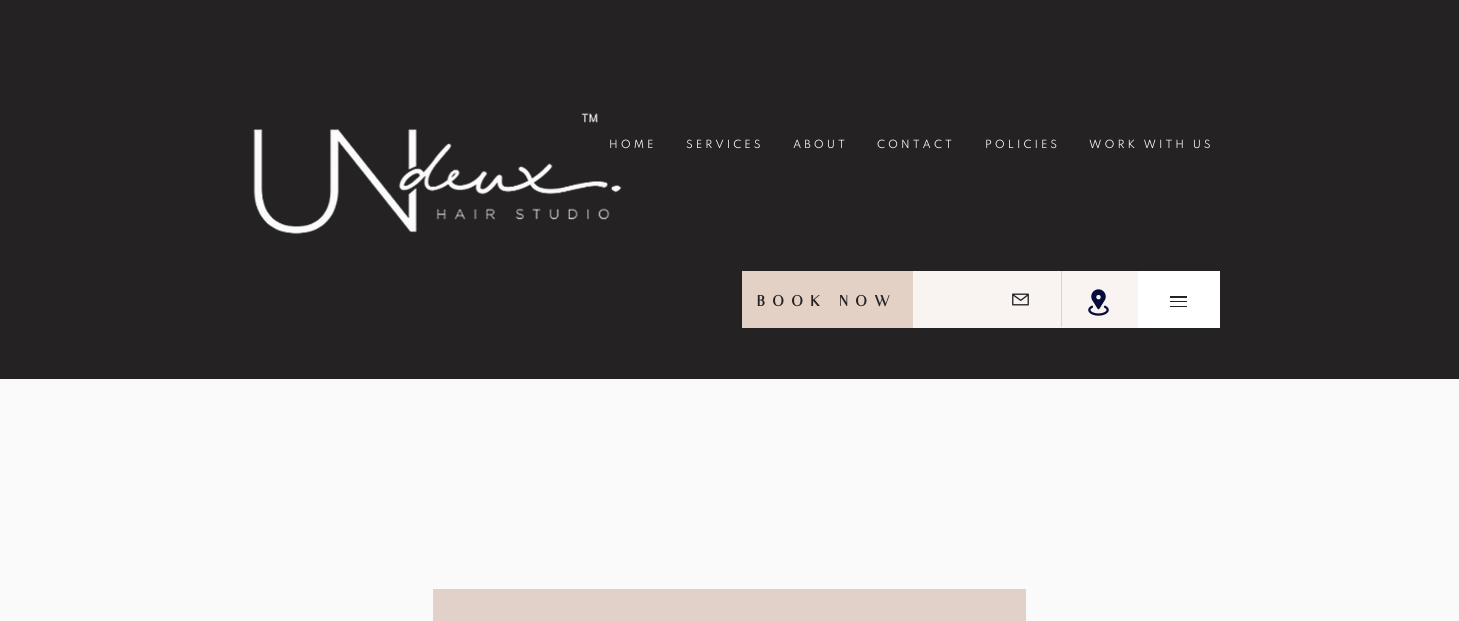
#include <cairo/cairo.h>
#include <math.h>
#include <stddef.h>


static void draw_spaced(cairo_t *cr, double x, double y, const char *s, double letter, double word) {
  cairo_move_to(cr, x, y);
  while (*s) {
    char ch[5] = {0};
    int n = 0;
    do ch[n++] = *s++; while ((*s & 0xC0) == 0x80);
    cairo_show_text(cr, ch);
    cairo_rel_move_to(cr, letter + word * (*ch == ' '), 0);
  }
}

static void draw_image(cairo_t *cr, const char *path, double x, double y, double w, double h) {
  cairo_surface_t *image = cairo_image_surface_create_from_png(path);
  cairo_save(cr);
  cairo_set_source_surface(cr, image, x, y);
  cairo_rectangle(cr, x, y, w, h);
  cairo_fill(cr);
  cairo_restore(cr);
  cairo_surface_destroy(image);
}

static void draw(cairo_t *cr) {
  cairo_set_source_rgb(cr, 250 / 255.0, 250 / 255.0, 250 / 255.0);
  cairo_paint(cr);
  cairo_set_source_rgb(cr, 37 / 255.0, 34 / 255.0, 36 / 255.0);
  cairo_rectangle(cr, 0, 0, 1459, 379);
  cairo_fill(cr);
  draw_image(cr, "images/1.png", 253, 113, 369, 121);
  cairo_set_source_rgb(cr, 228 / 255.0, 209 / 255.0, 198 / 255.0);
  cairo_rectangle(cr, 742, 271, 171, 57);
  cairo_fill(cr);
  cairo_set_source_rgb(cr, 249 / 255.0, 244 / 255.0, 241 / 255.0);
  cairo_rectangle(cr, 913, 271, 225, 57);
  cairo_fill(cr);
  draw_image(cr, "images/2.png", 1012, 293, 17, 13);
  cairo_set_source_rgb(cr, 228 / 255.0, 209 / 255.0, 198 / 255.0);
  cairo_rectangle(cr, 1061, 271, 1, 56);
  cairo_fill(cr);
  draw_image(cr, "images/3.png", 1088, 289, 21, 27);
  cairo_set_source_rgb(cr, 1, 1, 1);
  cairo_rectangle(cr, 1138, 271, 82, 57);
  cairo_fill(cr);
  cairo_set_source_rgb(cr, 37 / 255.0, 34 / 255.0, 36 / 255.0);
  cairo_rectangle(cr, 1170, 306, 17, 1);
  cairo_fill(cr);
  cairo_rectangle(cr, 1170, 296, 17, 2);
  cairo_fill(cr);
  cairo_rectangle(cr, 1170, 301, 17, 1);
  cairo_fill(cr);
  cairo_set_source_rgb(cr, 225 / 255.0, 209 / 255.0, 200 / 255.0);
  cairo_rectangle(cr, 433, 589, 593, 32);
  cairo_fill(cr);
  cairo_select_font_face(cr, "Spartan", CAIRO_FONT_SLANT_NORMAL, CAIRO_FONT_WEIGHT_NORMAL);
  cairo_set_font_size(cr, 10);
  cairo_set_source_rgb(cr, 1, 1, 1);
  draw_spaced(cr, 609, 148, "HOME", 3, 0);
  draw_spaced(cr, 686, 148, "SERVICES", 3, 0);
  draw_spaced(cr, 793, 148, "ABOUT", 3, 0);
  draw_spaced(cr, 877, 148, "CONTACT", 3, 0);
  draw_spaced(cr, 985, 148, "POLICIES", 3, 0);
  draw_spaced(cr, 1089, 148, "WORK WITH US", 3, 0);
  cairo_select_font_face(cr, "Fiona", CAIRO_FONT_SLANT_NORMAL, CAIRO_FONT_WEIGHT_BOLD);
  cairo_set_font_size(cr, 20);
  cairo_set_source_rgb(cr, 37 / 255.0, 34 / 255.0, 36 / 255.0);
  draw_spaced(cr, 757, 306, "BOOK NOW", 8, 0);
}

int main(void) {
  cairo_surface_t *surface = cairo_image_surface_create(CAIRO_FORMAT_RGB24, 1459, 621);
  cairo_t *cr = cairo_create(surface);
  cairo_font_options_t *options = cairo_font_options_create();
  cairo_font_options_set_hint_metrics(options, CAIRO_HINT_METRICS_OFF);
  cairo_font_options_set_hint_style(options, CAIRO_HINT_STYLE_NONE);
  cairo_set_font_options(cr, options);
  cairo_set_miter_limit(cr, 4);
  draw(cr);
  cairo_surface_write_to_png(surface, "out.png");
  cairo_font_options_destroy(options);
  cairo_destroy(cr);
  cairo_surface_destroy(surface);
  return 0;
}
